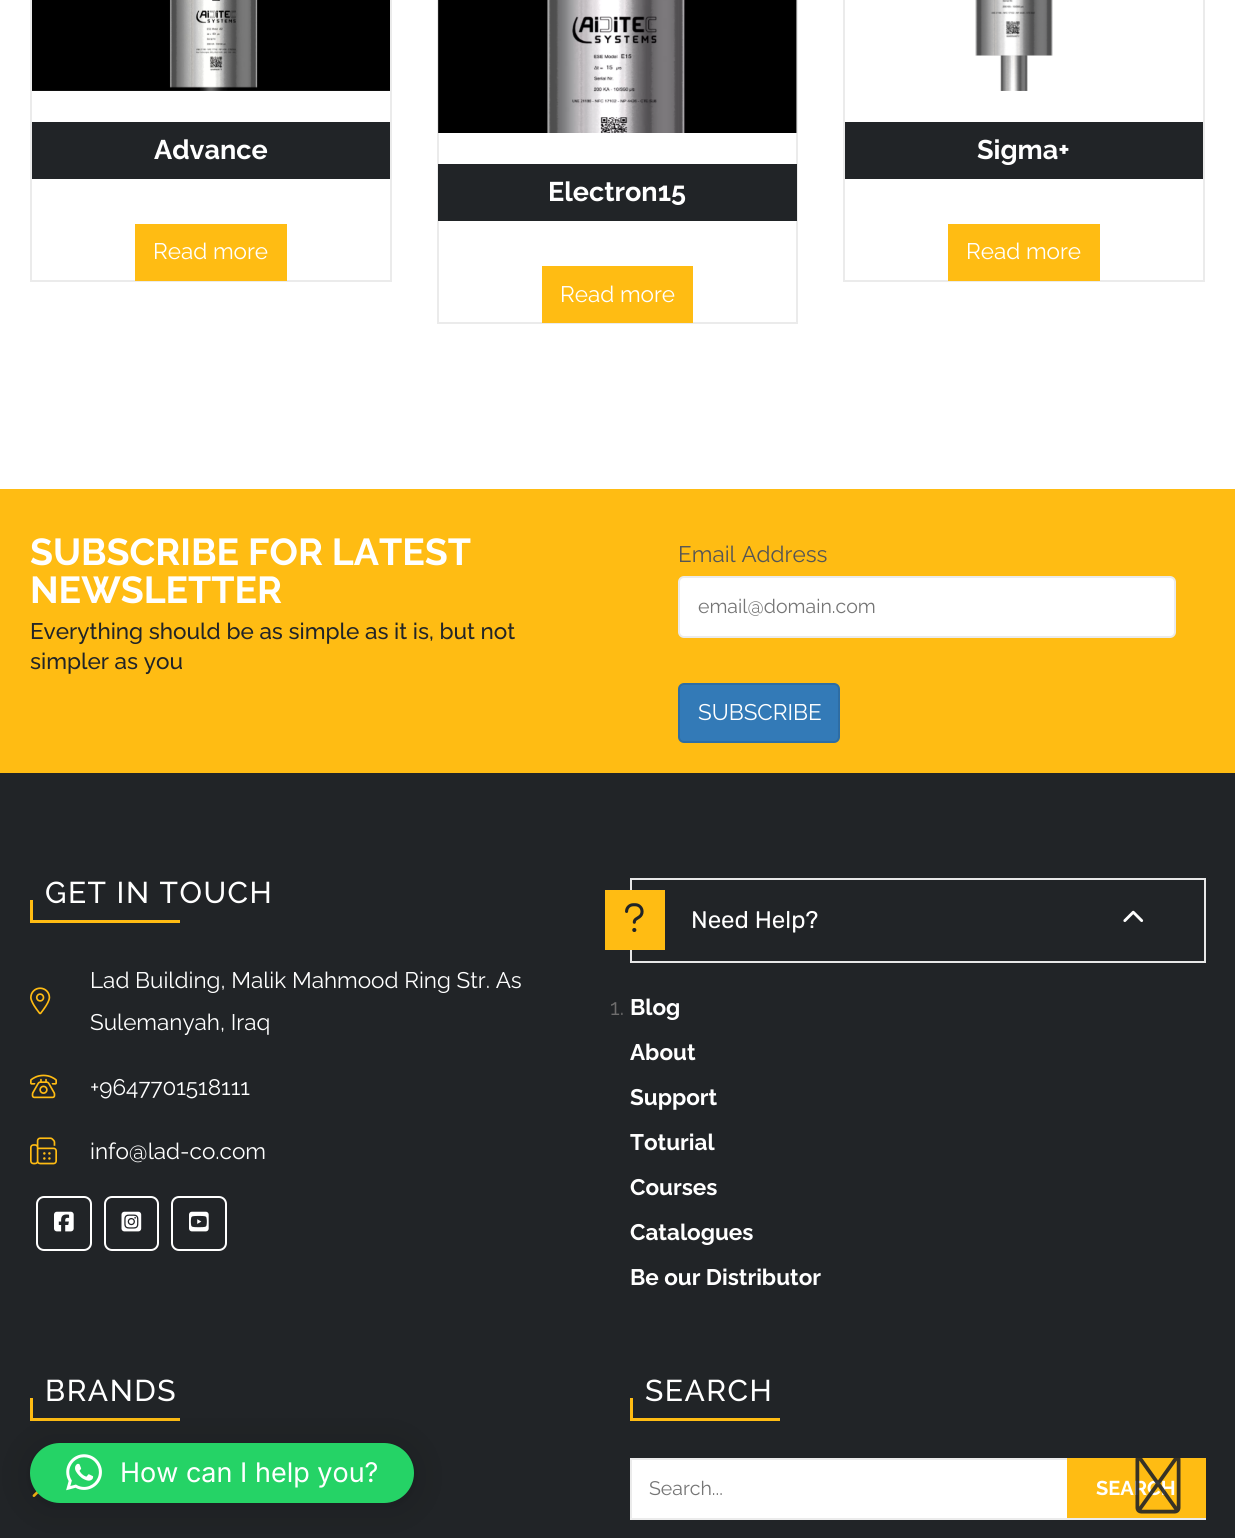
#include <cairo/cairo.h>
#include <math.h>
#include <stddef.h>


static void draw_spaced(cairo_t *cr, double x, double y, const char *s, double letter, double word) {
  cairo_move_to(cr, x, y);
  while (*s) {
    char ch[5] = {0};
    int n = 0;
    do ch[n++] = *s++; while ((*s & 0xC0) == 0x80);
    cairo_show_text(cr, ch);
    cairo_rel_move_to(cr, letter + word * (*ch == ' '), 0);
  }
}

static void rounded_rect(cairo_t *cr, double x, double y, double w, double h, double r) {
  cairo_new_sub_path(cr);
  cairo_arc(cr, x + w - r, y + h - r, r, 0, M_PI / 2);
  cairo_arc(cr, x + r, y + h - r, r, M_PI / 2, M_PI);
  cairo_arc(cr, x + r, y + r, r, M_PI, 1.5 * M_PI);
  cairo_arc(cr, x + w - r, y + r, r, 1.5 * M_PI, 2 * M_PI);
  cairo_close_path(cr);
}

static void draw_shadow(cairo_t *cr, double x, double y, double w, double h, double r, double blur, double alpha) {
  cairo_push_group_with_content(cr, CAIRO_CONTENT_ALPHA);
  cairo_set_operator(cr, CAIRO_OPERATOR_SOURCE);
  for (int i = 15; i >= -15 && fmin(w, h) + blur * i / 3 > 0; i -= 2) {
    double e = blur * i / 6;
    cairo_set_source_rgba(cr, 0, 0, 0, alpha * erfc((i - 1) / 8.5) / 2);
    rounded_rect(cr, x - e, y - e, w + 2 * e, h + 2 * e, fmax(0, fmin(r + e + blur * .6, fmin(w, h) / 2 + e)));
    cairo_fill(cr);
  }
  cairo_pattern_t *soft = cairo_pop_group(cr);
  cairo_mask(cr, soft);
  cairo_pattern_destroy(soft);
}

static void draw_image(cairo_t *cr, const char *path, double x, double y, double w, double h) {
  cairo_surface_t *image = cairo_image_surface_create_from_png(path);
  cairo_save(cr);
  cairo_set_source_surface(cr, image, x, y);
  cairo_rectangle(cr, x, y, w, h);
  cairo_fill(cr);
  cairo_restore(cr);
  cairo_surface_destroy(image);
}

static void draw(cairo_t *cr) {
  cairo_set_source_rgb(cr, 1, 1, 1);
  cairo_paint(cr);
  cairo_rectangle(cr, 31, -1, 360, 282);
  cairo_set_source_rgb(cr, 235 / 255.0, 235 / 255.0, 235 / 255.0);
  cairo_stroke(cr);
  draw_image(cr, "images/1.png", 32, 0, 358, 91);
  cairo_set_source_rgb(cr, 33 / 255.0, 36 / 255.0, 39 / 255.0);
  cairo_rectangle(cr, 32, 122, 358, 57);
  cairo_fill(cr);
  cairo_set_source_rgb(cr, 1, 188 / 255.0, 19 / 255.0);
  cairo_rectangle(cr, 135, 224, 152, 57);
  cairo_fill(cr);
  cairo_rectangle(cr, 438, -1, 359, 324);
  cairo_set_source_rgb(cr, 235 / 255.0, 235 / 255.0, 235 / 255.0);
  cairo_stroke(cr);
  draw_image(cr, "images/2.png", 438, 0, 359, 133);
  cairo_set_source_rgb(cr, 33 / 255.0, 36 / 255.0, 39 / 255.0);
  cairo_rectangle(cr, 438, 164, 359, 57);
  cairo_fill(cr);
  cairo_set_source_rgb(cr, 1, 188 / 255.0, 19 / 255.0);
  cairo_rectangle(cr, 542, 266, 151, 57);
  cairo_fill(cr);
  cairo_rectangle(cr, 844, -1, 360, 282);
  cairo_set_source_rgb(cr, 235 / 255.0, 235 / 255.0, 235 / 255.0);
  cairo_stroke(cr);
  draw_image(cr, "images/3.png", 975, 0, 78, 91);
  cairo_set_source_rgb(cr, 33 / 255.0, 36 / 255.0, 39 / 255.0);
  cairo_rectangle(cr, 845, 122, 358, 57);
  cairo_fill(cr);
  cairo_set_source_rgb(cr, 1, 188 / 255.0, 19 / 255.0);
  cairo_rectangle(cr, 948, 224, 152, 57);
  cairo_fill(cr);
  cairo_rectangle(cr, 0, 489, 1235, 284);
  cairo_fill(cr);
  cairo_set_source_rgb(cr, 1, 1, 1);
  rounded_rect(cr, 679, 577, 496, 60, 5);
  cairo_fill_preserve(cr);
  cairo_set_source_rgb(cr, 235 / 255.0, 235 / 255.0, 235 / 255.0);
  cairo_stroke(cr);
  cairo_set_source_rgb(cr, 51 / 255.0, 122 / 255.0, 183 / 255.0);
  rounded_rect(cr, 679, 684, 160, 58, 5);
  cairo_fill_preserve(cr);
  cairo_set_source_rgb(cr, 46 / 255.0, 109 / 255.0, 164 / 255.0);
  cairo_stroke(cr);
  cairo_set_source_rgb(cr, 33 / 255.0, 36 / 255.0, 39 / 255.0);
  cairo_rectangle(cr, 0, 773, 1235, 765);
  cairo_fill(cr);
  cairo_set_source_rgb(cr, 1, 188 / 255.0, 19 / 255.0);
  cairo_rectangle(cr, 30, 900, 3, 23);
  cairo_fill(cr);
  cairo_rectangle(cr, 30, 920, 150, 3);
  cairo_fill(cr);
  draw_image(cr, "images/4.png", 30, 987, 21, 28);
  draw_image(cr, "images/5.png", 30, 1074, 27, 25);
  draw_image(cr, "images/6.png", 30, 1137, 27, 28);
  rounded_rect(cr, 37, 1197, 54, 53, 7);
  cairo_set_source_rgb(cr, 1, 1, 1);
  cairo_stroke(cr);
  draw_image(cr, "images/7.png", 54, 1211, 20, 21);
  rounded_rect(cr, 105, 1197, 53, 53, 7);
  cairo_stroke(cr);
  draw_image(cr, "images/8.png", 121, 1211, 21, 21);
  rounded_rect(cr, 172, 1197, 54, 53, 7);
  cairo_stroke(cr);
  draw_image(cr, "images/9.png", 189, 1211, 20, 21);
  cairo_rectangle(cr, 631, 879, 574, 83);
  cairo_set_source_rgb(cr, 231 / 255.0, 231 / 255.0, 231 / 255.0);
  cairo_stroke(cr);
  cairo_set_source_rgb(cr, 1, 188 / 255.0, 19 / 255.0);
  cairo_rectangle(cr, 605, 890, 60, 60);
  cairo_fill(cr);
  draw_image(cr, "images/10.png", 625, 903, 19, 29);
  draw_image(cr, "images/11.png", 1123, 910, 21, 12);
  cairo_rectangle(cr, 30, 1398, 3, 23);
  cairo_fill(cr);
  cairo_rectangle(cr, 30, 1418, 150, 3);
  cairo_fill(cr);
  draw_image(cr, "images/12.png", 32, 1483, 7, 14);
  cairo_rectangle(cr, 630, 1398, 3, 23);
  cairo_fill(cr);
  cairo_rectangle(cr, 630, 1418, 150, 3);
  cairo_fill(cr);
  cairo_set_source_rgb(cr, 1, 1, 1);
  cairo_rectangle(cr, 632, 1460, 435, 58);
  cairo_fill(cr);
  cairo_rectangle(cr, 631, 1459, 574, 60);
  cairo_set_source_rgb(cr, 235 / 255.0, 235 / 255.0, 235 / 255.0);
  cairo_stroke(cr);
  cairo_set_source_rgb(cr, 1, 188 / 255.0, 19 / 255.0);
  cairo_rectangle(cr, 1067, 1458, 139, 60);
  cairo_fill(cr);
  cairo_set_source_rgb(cr, 0, 0, 0);
  draw_shadow(cr, 30, 1446, 384, 60, 30, 24, 0.16);
  draw_shadow(cr, 30, 1445, 384, 60, 30, 4.5, 0.06);
  cairo_set_source_rgb(cr, 37 / 255.0, 211 / 255.0, 102 / 255.0);
  rounded_rect(cr, 30, 1443, 384, 60, 30);
  cairo_fill(cr);
  draw_image(cr, "images/13.png", 66, 1454, 36, 37);
  cairo_select_font_face(cr, "Raleway", CAIRO_FONT_SLANT_NORMAL, CAIRO_FONT_WEIGHT_BOLD);
  cairo_set_font_size(cr, 27);
  cairo_set_source_rgb(cr, 1, 1, 1);
  cairo_move_to(cr, 154, 159);
  cairo_show_text(cr, "Advance");
  cairo_select_font_face(cr, "Raleway", CAIRO_FONT_SLANT_NORMAL, CAIRO_FONT_WEIGHT_NORMAL);
  cairo_set_font_size(cr, 22.5);
  cairo_move_to(cr, 153, 259);
  cairo_show_text(cr, "Read more");
  cairo_select_font_face(cr, "Raleway", CAIRO_FONT_SLANT_NORMAL, CAIRO_FONT_WEIGHT_BOLD);
  cairo_set_font_size(cr, 27);
  cairo_move_to(cr, 548, 201);
  cairo_show_text(cr, "Electron15");
  cairo_select_font_face(cr, "Raleway", CAIRO_FONT_SLANT_NORMAL, CAIRO_FONT_WEIGHT_NORMAL);
  cairo_set_font_size(cr, 22.5);
  cairo_move_to(cr, 560, 302);
  cairo_show_text(cr, "Read more");
  cairo_select_font_face(cr, "Raleway", CAIRO_FONT_SLANT_NORMAL, CAIRO_FONT_WEIGHT_BOLD);
  cairo_set_font_size(cr, 27);
  cairo_move_to(cr, 977, 159);
  cairo_show_text(cr, "Sigma+");
  cairo_select_font_face(cr, "Raleway", CAIRO_FONT_SLANT_NORMAL, CAIRO_FONT_WEIGHT_NORMAL);
  cairo_set_font_size(cr, 22.5);
  cairo_move_to(cr, 966, 259);
  cairo_show_text(cr, "Read more");
  cairo_select_font_face(cr, "Raleway", CAIRO_FONT_SLANT_NORMAL, CAIRO_FONT_WEIGHT_BOLD);
  cairo_set_font_size(cr, 37.5);
  cairo_move_to(cr, 30, 565);
  cairo_show_text(cr, "SUBSCRIBE FOR LATEST");
  cairo_move_to(cr, 30, 603);
  cairo_show_text(cr, "NEWSLETTER");
  cairo_select_font_face(cr, "Raleway Medium", CAIRO_FONT_SLANT_NORMAL, CAIRO_FONT_WEIGHT_NORMAL);
  cairo_set_font_size(cr, 22.5);
  cairo_set_source_rgb(cr, 33 / 255.0, 36 / 255.0, 39 / 255.0);
  cairo_move_to(cr, 30, 639);
  cairo_show_text(cr, "Everything should be as simple as it is, but not");
  cairo_move_to(cr, 30, 669);
  cairo_show_text(cr, "simpler as you");
  cairo_select_font_face(cr, "Raleway", CAIRO_FONT_SLANT_NORMAL, CAIRO_FONT_WEIGHT_NORMAL);
  cairo_set_source_rgb(cr, 85 / 255.0, 85 / 255.0, 85 / 255.0);
  cairo_move_to(cr, 678, 562);
  cairo_show_text(cr, "Email Address");
  cairo_set_font_size(cr, 19.5);
  cairo_set_source_rgb(cr, 117 / 255.0, 117 / 255.0, 117 / 255.0);
  cairo_move_to(cr, 698, 613);
  cairo_show_text(cr, "email@domain.com");
  cairo_set_font_size(cr, 22.5);
  cairo_set_source_rgb(cr, 1, 1, 1);
  cairo_move_to(cr, 698, 720);
  cairo_show_text(cr, "SUBSCRIBE");
  cairo_select_font_face(cr, "Raleway Medium", CAIRO_FONT_SLANT_NORMAL, CAIRO_FONT_WEIGHT_NORMAL);
  cairo_set_font_size(cr, 30);
  draw_spaced(cr, 45, 903, "GET IN TOUCH", 1.5, 0);
  cairo_select_font_face(cr, "Raleway", CAIRO_FONT_SLANT_NORMAL, CAIRO_FONT_WEIGHT_NORMAL);
  cairo_set_font_size(cr, 22.5);
  cairo_move_to(cr, 90, 988);
  cairo_show_text(cr, "Lad Building, Malik Mahmood Ring Str. As");
  cairo_move_to(cr, 90, 1030);
  cairo_show_text(cr, "Sulemanyah, Iraq");
  cairo_move_to(cr, 90, 1095);
  cairo_show_text(cr, "+9647701518111");
  cairo_move_to(cr, 90, 1159);
  cairo_show_text(cr, "info@lad-co.com");
  cairo_select_font_face(cr, "Rubik", CAIRO_FONT_SLANT_NORMAL, CAIRO_FONT_WEIGHT_NORMAL);
  cairo_set_font_size(cr, 24);
  cairo_move_to(cr, 691, 928);
  cairo_show_text(cr, "Need Help?");
  cairo_select_font_face(cr, "Raleway", CAIRO_FONT_SLANT_NORMAL, CAIRO_FONT_WEIGHT_NORMAL);
  cairo_set_font_size(cr, 22.5);
  cairo_set_source_rgb(cr, 110 / 255.0, 109 / 255.0, 109 / 255.0);
  cairo_move_to(cr, 610, 1015);
  cairo_show_text(cr, "1.");
  cairo_select_font_face(cr, "Raleway", CAIRO_FONT_SLANT_NORMAL, CAIRO_FONT_WEIGHT_BOLD);
  cairo_set_source_rgb(cr, 1, 1, 1);
  cairo_move_to(cr, 630, 1015);
  cairo_show_text(cr, "Blog");
  cairo_move_to(cr, 630, 1060);
  cairo_show_text(cr, "About");
  cairo_move_to(cr, 630, 1105);
  cairo_show_text(cr, "Support");
  cairo_move_to(cr, 630, 1150);
  cairo_show_text(cr, "Toturial");
  cairo_move_to(cr, 630, 1195);
  cairo_show_text(cr, "Courses");
  cairo_move_to(cr, 630, 1240);
  cairo_show_text(cr, "Catalogues");
  cairo_move_to(cr, 630, 1285);
  cairo_show_text(cr, "Be our Distributor");
  cairo_select_font_face(cr, "Raleway Medium", CAIRO_FONT_SLANT_NORMAL, CAIRO_FONT_WEIGHT_NORMAL);
  cairo_set_font_size(cr, 30);
  draw_spaced(cr, 45, 1401, "BRANDS", 1.5, 0);
  draw_spaced(cr, 645, 1401, "SEARCH", 1.5, 0);
  cairo_select_font_face(cr, "Raleway", CAIRO_FONT_SLANT_NORMAL, CAIRO_FONT_WEIGHT_NORMAL);
  cairo_set_font_size(cr, 19.5);
  cairo_set_source_rgb(cr, 117 / 255.0, 117 / 255.0, 117 / 255.0);
  cairo_move_to(cr, 649, 1495);
  cairo_show_text(cr, "Search...");
  cairo_select_font_face(cr, "Raleway", CAIRO_FONT_SLANT_NORMAL, CAIRO_FONT_WEIGHT_BOLD);
  cairo_set_font_size(cr, 20);
  cairo_set_source_rgb(cr, 1, 1, 1);
  cairo_move_to(cr, 1096, 1495);
  cairo_show_text(cr, "SEARCH");
  cairo_select_font_face(cr, "Inter", CAIRO_FONT_SLANT_NORMAL, CAIRO_FONT_WEIGHT_NORMAL);
  cairo_set_font_size(cr, 27);
  cairo_move_to(cr, 120, 1482);
  cairo_show_text(cr, "How can I help you?");
  draw_image(cr, "images/14.png", 1135, 1458, 46, 56);
}

int main(void) {
  cairo_surface_t *surface = cairo_image_surface_create(CAIRO_FORMAT_RGB24, 1235, 1538);
  cairo_t *cr = cairo_create(surface);
  cairo_font_options_t *options = cairo_font_options_create();
  cairo_font_options_set_hint_metrics(options, CAIRO_HINT_METRICS_OFF);
  cairo_font_options_set_hint_style(options, CAIRO_HINT_STYLE_NONE);
  cairo_set_font_options(cr, options);
  cairo_set_miter_limit(cr, 4);
  draw(cr);
  cairo_surface_write_to_png(surface, "out.png");
  cairo_font_options_destroy(options);
  cairo_destroy(cr);
  cairo_surface_destroy(surface);
  return 0;
}
